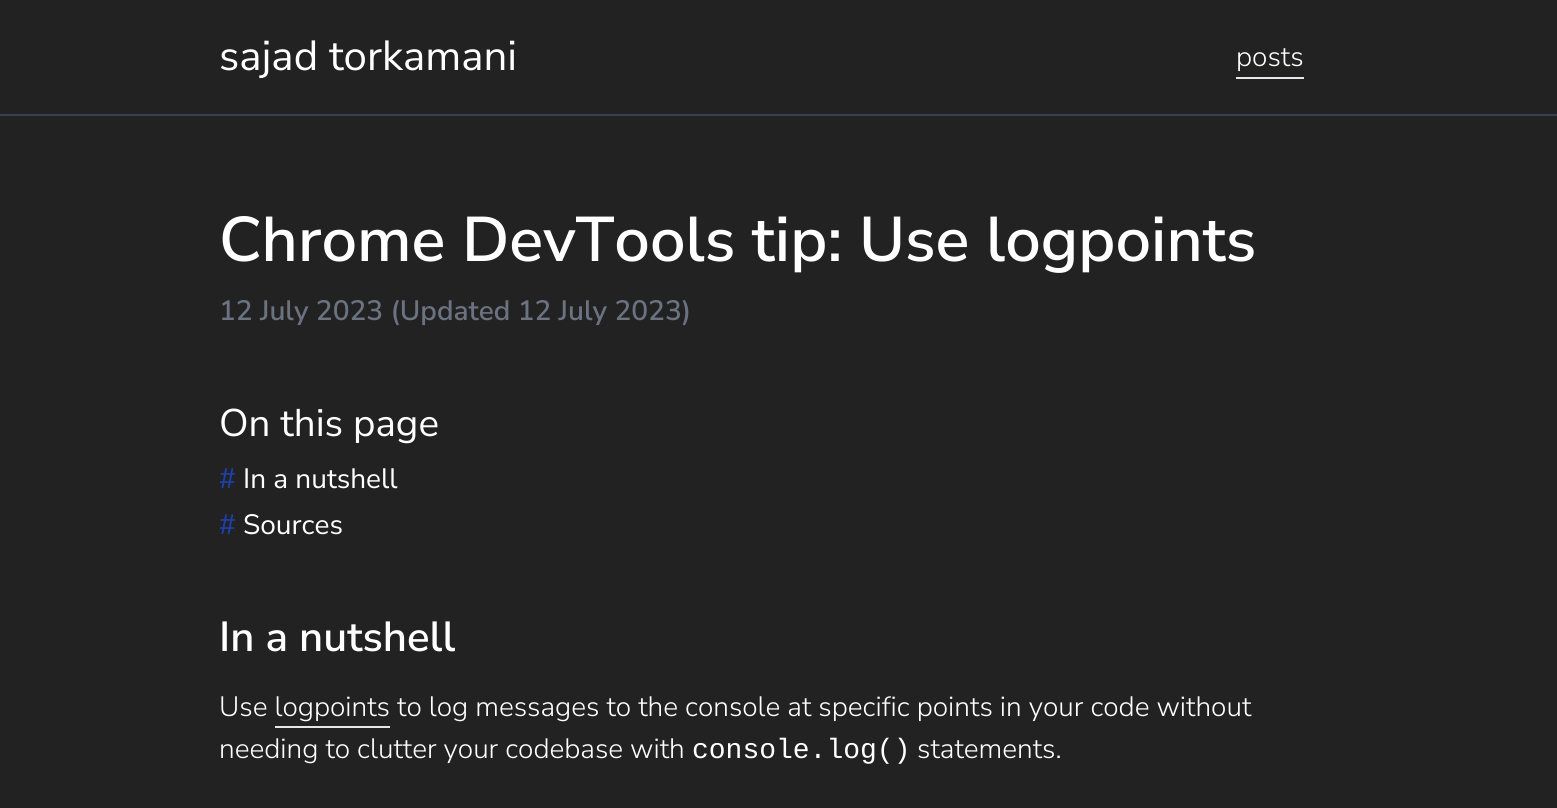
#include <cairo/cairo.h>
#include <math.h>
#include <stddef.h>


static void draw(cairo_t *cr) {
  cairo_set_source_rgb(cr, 34 / 255.0, 34 / 255.0, 34 / 255.0);
  cairo_paint(cr);
  cairo_set_source_rgb(cr, 55 / 255.0, 65 / 255.0, 81 / 255.0);
  cairo_rectangle(cr, 0, 114, 1557, 2);
  cairo_fill(cr);
  cairo_set_source_rgb(cr, 229 / 255.0, 231 / 255.0, 235 / 255.0);
  cairo_rectangle(cr, 1236, 77, 68, 2);
  cairo_fill(cr);
  cairo_rectangle(cr, 275, 726, 115, 2);
  cairo_fill(cr);
  cairo_select_font_face(cr, "Nunito Sans", CAIRO_FONT_SLANT_NORMAL, CAIRO_FONT_WEIGHT_NORMAL);
  cairo_set_font_size(cr, 42);
  cairo_set_source_rgb(cr, 1, 1, 1);
  cairo_move_to(cr, 219, 70);
  cairo_show_text(cr, "sajad torkamani");
  cairo_select_font_face(cr, "Nunito Sans Light", CAIRO_FONT_SLANT_NORMAL, CAIRO_FONT_WEIGHT_NORMAL);
  cairo_set_font_size(cr, 28);
  cairo_move_to(cr, 1236, 66);
  cairo_show_text(cr, "posts");
  cairo_select_font_face(cr, "Nunito Sans SemiBold", CAIRO_FONT_SLANT_NORMAL, CAIRO_FONT_WEIGHT_NORMAL);
  cairo_set_font_size(cr, 63);
  cairo_move_to(cr, 219, 261);
  cairo_show_text(cr, "Chrome DevTools tip: Use logpoints");
  cairo_set_font_size(cr, 28);
  cairo_set_source_rgb(cr, 107 / 255.0, 114 / 255.0, 128 / 255.0);
  cairo_move_to(cr, 219, 320);
  cairo_show_text(cr, "12 July 2023 (Updated 12 July 2023)");
  cairo_select_font_face(cr, "Nunito Sans", CAIRO_FONT_SLANT_NORMAL, CAIRO_FONT_WEIGHT_NORMAL);
  cairo_set_font_size(cr, 38.5);
  cairo_set_source_rgb(cr, 1, 1, 1);
  cairo_move_to(cr, 219, 436);
  cairo_show_text(cr, "On this page");
  cairo_set_font_size(cr, 28);
  cairo_set_source_rgb(cr, 30 / 255.0, 64 / 255.0, 175 / 255.0);
  cairo_move_to(cr, 219, 488);
  cairo_show_text(cr, "#");
  cairo_set_source_rgb(cr, 1, 1, 1);
  cairo_move_to(cr, 243, 488);
  cairo_show_text(cr, "In a nutshell");
  cairo_set_source_rgb(cr, 30 / 255.0, 64 / 255.0, 175 / 255.0);
  cairo_move_to(cr, 219, 534);
  cairo_show_text(cr, "#");
  cairo_set_source_rgb(cr, 1, 1, 1);
  cairo_move_to(cr, 243, 534);
  cairo_show_text(cr, "Sources");
  cairo_select_font_face(cr, "Nunito Sans SemiBold", CAIRO_FONT_SLANT_NORMAL, CAIRO_FONT_WEIGHT_NORMAL);
  cairo_set_font_size(cr, 42);
  cairo_move_to(cr, 219, 651);
  cairo_show_text(cr, "In a nutshell");
  cairo_select_font_face(cr, "Nunito Sans Light", CAIRO_FONT_SLANT_NORMAL, CAIRO_FONT_WEIGHT_NORMAL);
  cairo_set_font_size(cr, 28);
  cairo_move_to(cr, 219, 716);
  cairo_show_text(cr, "Use logpoints to log messages to the console at specific points in your code without");
  cairo_move_to(cr, 219, 758);
  cairo_show_text(cr, "needing to clutter your codebase with");
  cairo_select_font_face(cr, "Liberation Mono", CAIRO_FONT_SLANT_NORMAL, CAIRO_FONT_WEIGHT_NORMAL);
  cairo_move_to(cr, 692, 758);
  cairo_show_text(cr, "console.log()");
  cairo_select_font_face(cr, "Nunito Sans Light", CAIRO_FONT_SLANT_NORMAL, CAIRO_FONT_WEIGHT_NORMAL);
  cairo_move_to(cr, 917, 758);
  cairo_show_text(cr, "statements.");
}

int main(void) {
  cairo_surface_t *surface = cairo_image_surface_create(CAIRO_FORMAT_RGB24, 1557, 808);
  cairo_t *cr = cairo_create(surface);
  cairo_font_options_t *options = cairo_font_options_create();
  cairo_font_options_set_hint_metrics(options, CAIRO_HINT_METRICS_OFF);
  cairo_font_options_set_hint_style(options, CAIRO_HINT_STYLE_NONE);
  cairo_set_font_options(cr, options);
  cairo_set_miter_limit(cr, 4);
  draw(cr);
  cairo_surface_write_to_png(surface, "out.png");
  cairo_font_options_destroy(options);
  cairo_destroy(cr);
  cairo_surface_destroy(surface);
  return 0;
}
